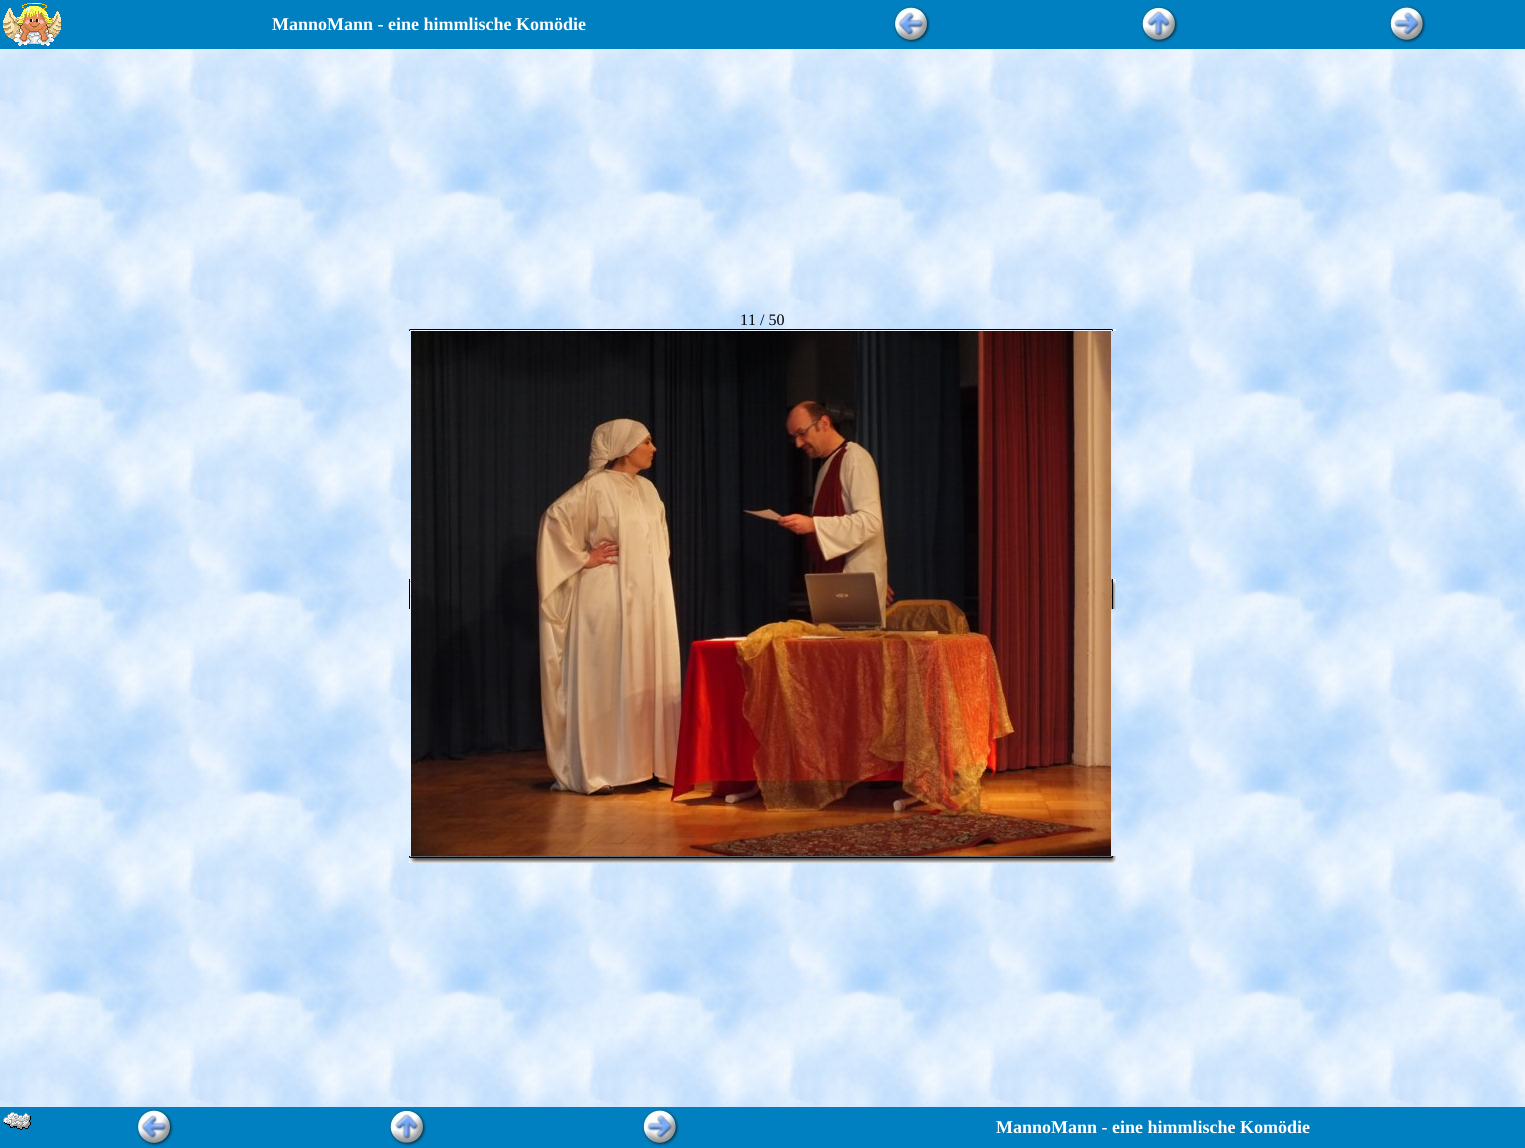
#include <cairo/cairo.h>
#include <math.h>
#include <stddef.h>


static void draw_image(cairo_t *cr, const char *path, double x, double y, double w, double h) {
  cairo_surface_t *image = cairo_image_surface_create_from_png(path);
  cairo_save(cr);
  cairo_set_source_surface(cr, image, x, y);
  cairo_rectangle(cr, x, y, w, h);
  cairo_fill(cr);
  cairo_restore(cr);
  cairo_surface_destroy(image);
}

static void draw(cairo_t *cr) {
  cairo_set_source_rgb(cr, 1, 1, 1);
  cairo_paint(cr);
  draw_image(cr, "images/1.png", 0, 49, 1525, 1058);
  cairo_set_source_rgb(cr, 0, 128 / 255.0, 192 / 255.0);
  cairo_rectangle(cr, 0, 0, 1525, 49);
  cairo_fill(cr);
  draw_image(cr, "images/2.png", 3, 3, 58, 43);
  draw_image(cr, "images/3.png", 893, 6, 37, 37);
  draw_image(cr, "images/4.png", 1141, 6, 37, 37);
  draw_image(cr, "images/5.png", 1389, 6, 37, 37);
  draw_image(cr, "images/6.png", 409, 329, 2, 2);
  draw_image(cr, "images/7.png", 411, 329, 700, 2);
  draw_image(cr, "images/8.png", 1098, 330, 6, 1);
  draw_image(cr, "images/9.png", 1111, 329, 5, 2);
  draw_image(cr, "images/10.png", 409, 579, 2, 30);
  draw_image(cr, "images/11.png", 411, 331, 700, 525);
  draw_image(cr, "images/12.png", 1111, 579, 5, 30);
  draw_image(cr, "images/13.png", 1113, 579, 3, 7);
  draw_image(cr, "images/14.png", 409, 856, 2, 7);
  draw_image(cr, "images/15.png", 411, 856, 700, 7);
  draw_image(cr, "images/16.png", 1098, 856, 6, 1);
  draw_image(cr, "images/17.png", 411, 858, 5, 5);
  draw_image(cr, "images/18.png", 1111, 856, 5, 7);
  cairo_rectangle(cr, 0, 1107, 1525, 41);
  cairo_fill(cr);
  draw_image(cr, "images/19.png", 3, 1112, 28, 18);
  draw_image(cr, "images/3.png", 136, 1109, 37, 37);
  draw_image(cr, "images/4.png", 389, 1109, 37, 37);
  draw_image(cr, "images/5.png", 642, 1109, 37, 37);
  cairo_select_font_face(cr, "Liberation Serif", CAIRO_FONT_SLANT_NORMAL, CAIRO_FONT_WEIGHT_BOLD);
  cairo_set_font_size(cr, 18);
  cairo_set_source_rgb(cr, 1, 1, 1);
  cairo_move_to(cr, 272, 30);
  cairo_show_text(cr, "MannoMann - eine himmlische Komödie");
  cairo_select_font_face(cr, "Liberation Serif", CAIRO_FONT_SLANT_NORMAL, CAIRO_FONT_WEIGHT_NORMAL);
  cairo_set_font_size(cr, 16);
  cairo_set_source_rgb(cr, 0, 0, 0);
  cairo_move_to(cr, 740, 325);
  cairo_show_text(cr, "11 / 50");
  cairo_select_font_face(cr, "Liberation Serif", CAIRO_FONT_SLANT_NORMAL, CAIRO_FONT_WEIGHT_BOLD);
  cairo_set_font_size(cr, 18);
  cairo_set_source_rgb(cr, 1, 1, 1);
  cairo_move_to(cr, 996, 1133);
  cairo_show_text(cr, "MannoMann - eine himmlische Komödie");
}

int main(void) {
  cairo_surface_t *surface = cairo_image_surface_create(CAIRO_FORMAT_RGB24, 1525, 1148);
  cairo_t *cr = cairo_create(surface);
  cairo_font_options_t *options = cairo_font_options_create();
  cairo_font_options_set_hint_metrics(options, CAIRO_HINT_METRICS_OFF);
  cairo_font_options_set_hint_style(options, CAIRO_HINT_STYLE_NONE);
  cairo_set_font_options(cr, options);
  cairo_set_miter_limit(cr, 4);
  draw(cr);
  cairo_surface_write_to_png(surface, "out.png");
  cairo_font_options_destroy(options);
  cairo_destroy(cr);
  cairo_surface_destroy(surface);
  return 0;
}
